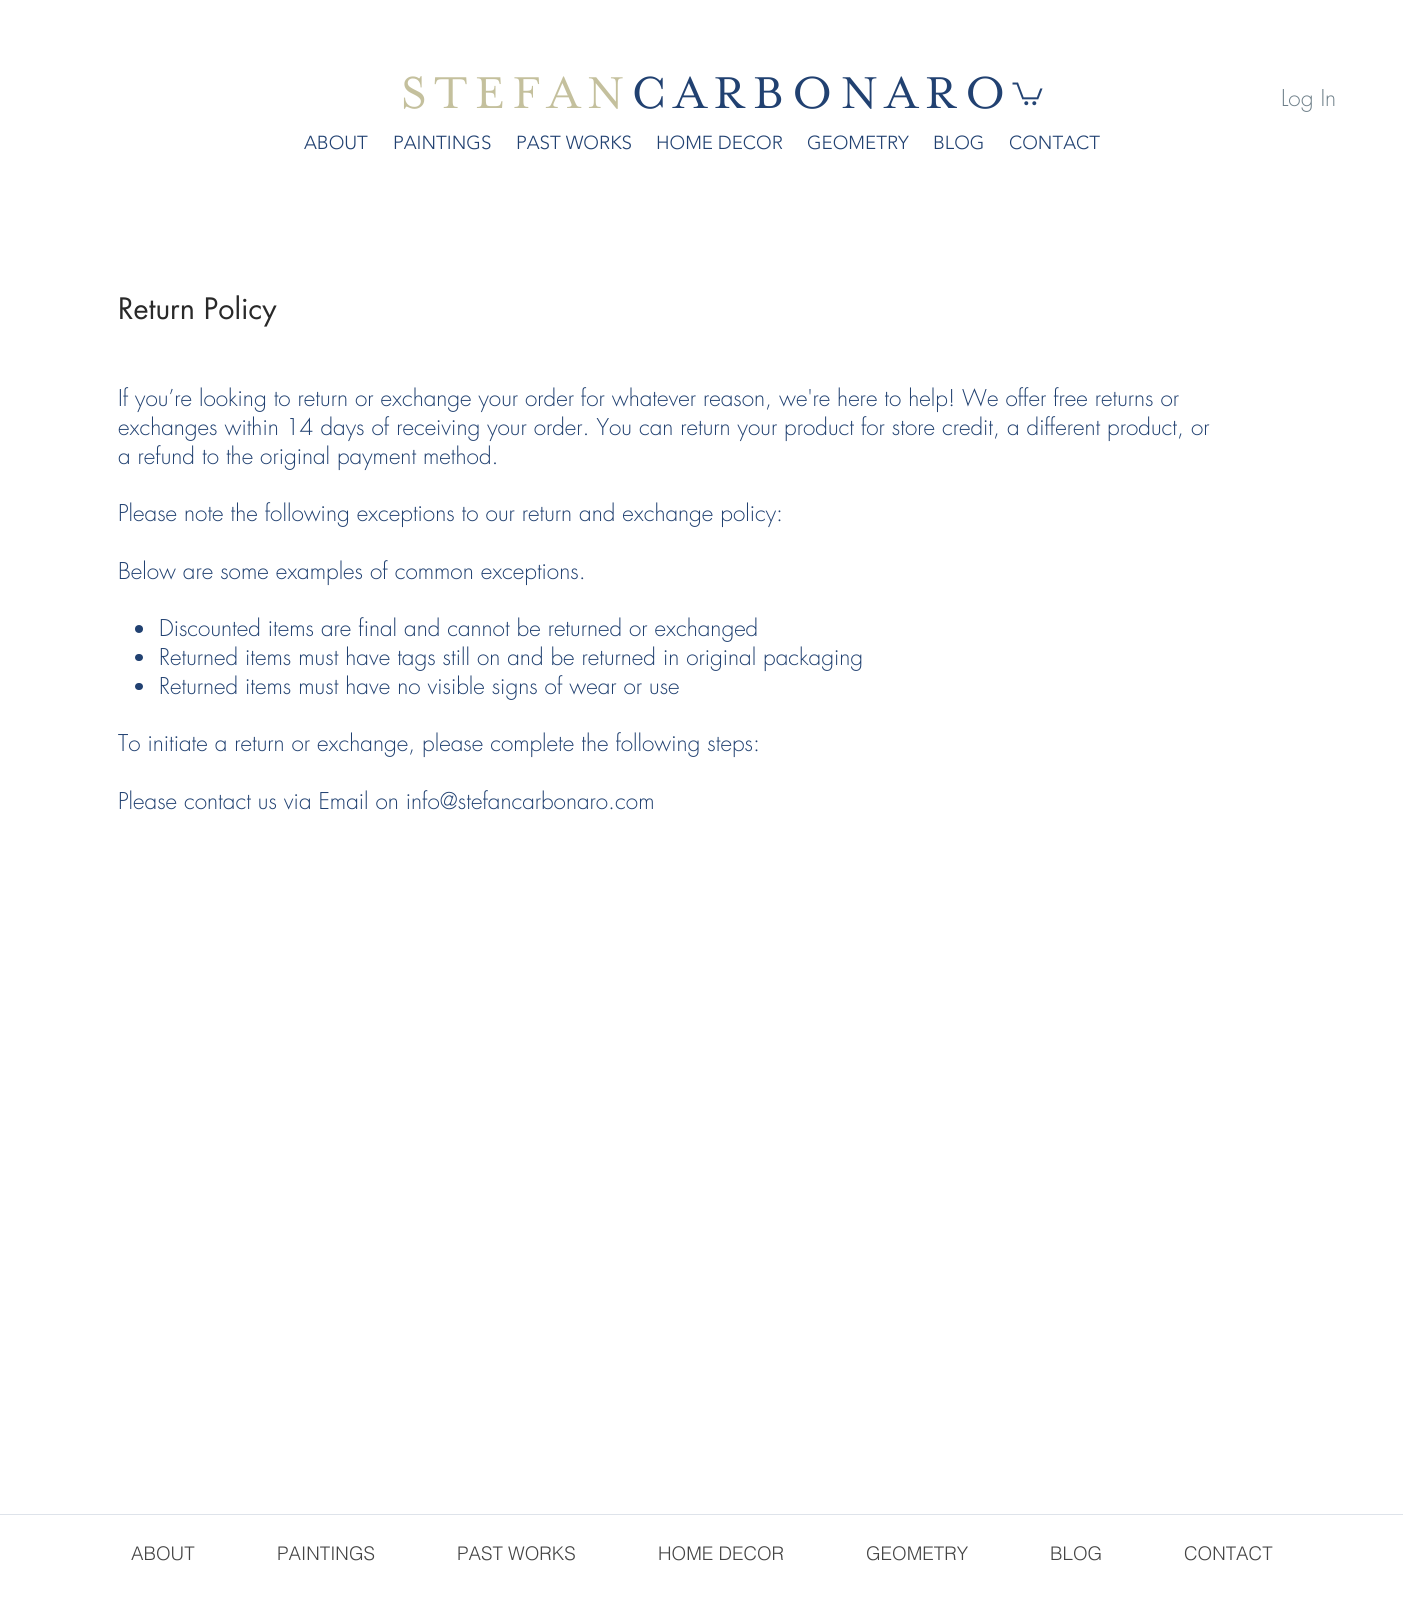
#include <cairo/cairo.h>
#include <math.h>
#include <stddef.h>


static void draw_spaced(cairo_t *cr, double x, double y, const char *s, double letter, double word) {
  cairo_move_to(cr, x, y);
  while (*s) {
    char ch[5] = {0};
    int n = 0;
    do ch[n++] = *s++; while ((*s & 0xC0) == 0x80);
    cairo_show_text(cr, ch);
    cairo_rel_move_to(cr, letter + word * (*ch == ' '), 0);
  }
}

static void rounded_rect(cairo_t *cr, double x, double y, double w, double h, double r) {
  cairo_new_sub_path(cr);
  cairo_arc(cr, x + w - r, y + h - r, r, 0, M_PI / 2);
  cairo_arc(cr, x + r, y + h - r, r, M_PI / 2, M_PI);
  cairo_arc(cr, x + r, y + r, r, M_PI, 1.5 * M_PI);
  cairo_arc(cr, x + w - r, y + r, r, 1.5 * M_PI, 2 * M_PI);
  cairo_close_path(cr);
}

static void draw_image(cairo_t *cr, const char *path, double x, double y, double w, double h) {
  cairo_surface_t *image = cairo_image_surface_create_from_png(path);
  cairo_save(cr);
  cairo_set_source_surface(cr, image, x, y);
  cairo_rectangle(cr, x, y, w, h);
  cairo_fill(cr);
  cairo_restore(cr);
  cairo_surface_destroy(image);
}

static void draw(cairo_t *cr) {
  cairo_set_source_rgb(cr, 1, 1, 1);
  cairo_paint(cr);
  draw_image(cr, "images/1.png", 1012, 82, 31, 24);
  cairo_set_source_rgb(cr, 33 / 255.0, 65 / 255.0, 113 / 255.0);
  cairo_arc(cr, 139, 629, 4, 0, 2 * M_PI);
  cairo_fill(cr);
  rounded_rect(cr, 135, 654, 8, 7, 3.5);
  cairo_fill(cr);
  rounded_rect(cr, 135, 683, 8, 7, 3.5);
  cairo_fill(cr);
  cairo_set_source_rgb(cr, 222 / 255.0, 227 / 255.0, 234 / 255.0);
  cairo_rectangle(cr, 0, 1514, 1403, 1);
  cairo_fill(cr);
  cairo_select_font_face(cr, "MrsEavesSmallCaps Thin", CAIRO_FONT_SLANT_NORMAL, CAIRO_FONT_WEIGHT_NORMAL);
  cairo_set_font_size(cr, 51.25);
  cairo_set_source_rgb(cr, 196 / 255.0, 192 / 255.0, 157 / 255.0);
  draw_spaced(cr, 401, 108, "STEFAN", 7.75, 0);
  cairo_set_source_rgb(cr, 33 / 255.0, 65 / 255.0, 113 / 255.0);
  draw_spaced(cr, 631, 108, "CARBONARO", 7.75, 0);
  cairo_select_font_face(cr, "futura Light", CAIRO_FONT_SLANT_NORMAL, CAIRO_FONT_WEIGHT_NORMAL);
  cairo_set_font_size(cr, 22.5);
  cairo_set_source_rgb(cr, 110 / 255.0, 127 / 255.0, 137 / 255.0);
  cairo_move_to(cr, 1281, 106);
  cairo_show_text(cr, "Log In");
  cairo_select_font_face(cr, "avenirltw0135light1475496 Light", CAIRO_FONT_SLANT_NORMAL, CAIRO_FONT_WEIGHT_NORMAL);
  cairo_set_font_size(cr, 18.75);
  cairo_set_source_rgb(cr, 33 / 255.0, 65 / 255.0, 113 / 255.0);
  cairo_move_to(cr, 304, 149);
  cairo_show_text(cr, "ABOUT");
  cairo_move_to(cr, 393, 149);
  cairo_show_text(cr, "PAINTINGS");
  cairo_move_to(cr, 516, 149);
  cairo_show_text(cr, "PAST WORKS");
  cairo_move_to(cr, 656, 149);
  cairo_show_text(cr, "HOME DECOR");
  cairo_move_to(cr, 807, 149);
  cairo_show_text(cr, "GEOMETRY");
  cairo_move_to(cr, 933, 149);
  cairo_show_text(cr, "BLOG");
  cairo_move_to(cr, 1009, 149);
  cairo_show_text(cr, "CONTACT");
  cairo_select_font_face(cr, "futura", CAIRO_FONT_SLANT_NORMAL, CAIRO_FONT_WEIGHT_NORMAL);
  cairo_set_font_size(cr, 28.75);
  cairo_set_source_rgb(cr, 41 / 255.0, 41 / 255.0, 41 / 255.0);
  cairo_move_to(cr, 118, 319);
  cairo_show_text(cr, "Return Policy");
  cairo_select_font_face(cr, "futura Light", CAIRO_FONT_SLANT_NORMAL, CAIRO_FONT_WEIGHT_NORMAL);
  cairo_set_font_size(cr, 22.5);
  cairo_set_source_rgb(cr, 33 / 255.0, 65 / 255.0, 113 / 255.0);
  cairo_move_to(cr, 118, 406);
  cairo_show_text(cr, "If you’re looking to return or exchange your order for whatever reason, we're here to help! We offer free returns or");
  cairo_move_to(cr, 118, 435);
  cairo_show_text(cr, "exchanges within 14 days of receiving your order. You can return your product for store credit, a different product, or");
  cairo_move_to(cr, 118, 464);
  cairo_show_text(cr, "a refund to the original payment method.");
  cairo_move_to(cr, 118, 521);
  cairo_show_text(cr, "Please note the following exceptions to our return and exchange policy:");
  cairo_move_to(cr, 118, 579);
  cairo_show_text(cr, "Below are some examples of common exceptions.");
  cairo_move_to(cr, 159, 636);
  cairo_show_text(cr, "Discounted items are final and cannot be returned or exchanged");
  cairo_move_to(cr, 159, 665);
  cairo_show_text(cr, "Returned items must have tags still on and be returned in original packaging");
  cairo_move_to(cr, 159, 694);
  cairo_show_text(cr, "Returned items must have no visible signs of wear or use");
  cairo_move_to(cr, 118, 751);
  cairo_show_text(cr, "To initiate a return or exchange, please complete the following steps:");
  cairo_move_to(cr, 118, 809);
  cairo_show_text(cr, "Please contact us via Email on info@stefancarbonaro.com");
  cairo_select_font_face(cr, "helvetica Light", CAIRO_FONT_SLANT_NORMAL, CAIRO_FONT_WEIGHT_NORMAL);
  cairo_set_font_size(cr, 18.75);
  cairo_set_source_rgb(cr, 68 / 255.0, 68 / 255.0, 68 / 255.0);
  cairo_move_to(cr, 131, 1560);
  cairo_show_text(cr, "ABOUT");
  cairo_move_to(cr, 277, 1560);
  cairo_show_text(cr, "PAINTINGS");
  cairo_move_to(cr, 457, 1560);
  cairo_show_text(cr, "PAST WORKS");
  cairo_move_to(cr, 658, 1560);
  cairo_show_text(cr, "HOME DECOR");
  cairo_move_to(cr, 866, 1560);
  cairo_show_text(cr, "GEOMETRY");
  cairo_move_to(cr, 1050, 1560);
  cairo_show_text(cr, "BLOG");
  cairo_move_to(cr, 1184, 1560);
  cairo_show_text(cr, "CONTACT");
}

int main(void) {
  cairo_surface_t *surface = cairo_image_surface_create(CAIRO_FORMAT_RGB24, 1403, 1604);
  cairo_t *cr = cairo_create(surface);
  cairo_font_options_t *options = cairo_font_options_create();
  cairo_font_options_set_hint_metrics(options, CAIRO_HINT_METRICS_OFF);
  cairo_font_options_set_hint_style(options, CAIRO_HINT_STYLE_NONE);
  cairo_set_font_options(cr, options);
  cairo_set_miter_limit(cr, 4);
  draw(cr);
  cairo_surface_write_to_png(surface, "out.png");
  cairo_font_options_destroy(options);
  cairo_destroy(cr);
  cairo_surface_destroy(surface);
  return 0;
}
